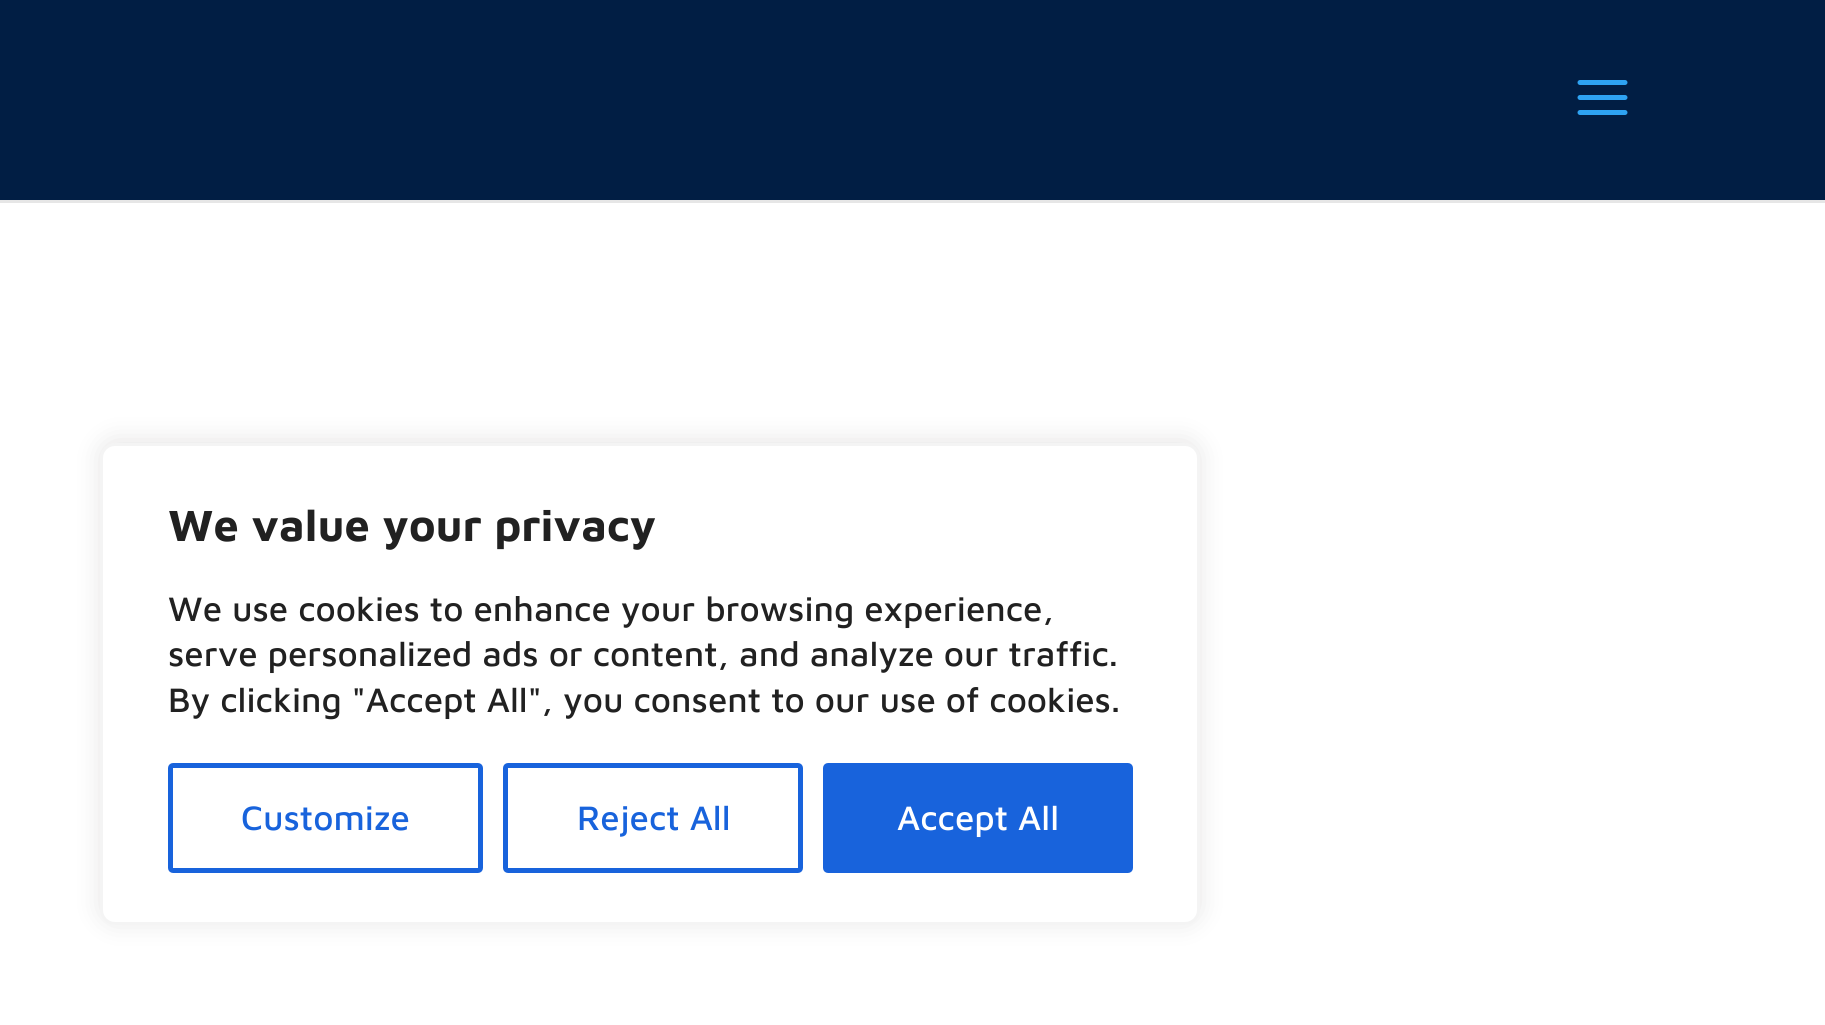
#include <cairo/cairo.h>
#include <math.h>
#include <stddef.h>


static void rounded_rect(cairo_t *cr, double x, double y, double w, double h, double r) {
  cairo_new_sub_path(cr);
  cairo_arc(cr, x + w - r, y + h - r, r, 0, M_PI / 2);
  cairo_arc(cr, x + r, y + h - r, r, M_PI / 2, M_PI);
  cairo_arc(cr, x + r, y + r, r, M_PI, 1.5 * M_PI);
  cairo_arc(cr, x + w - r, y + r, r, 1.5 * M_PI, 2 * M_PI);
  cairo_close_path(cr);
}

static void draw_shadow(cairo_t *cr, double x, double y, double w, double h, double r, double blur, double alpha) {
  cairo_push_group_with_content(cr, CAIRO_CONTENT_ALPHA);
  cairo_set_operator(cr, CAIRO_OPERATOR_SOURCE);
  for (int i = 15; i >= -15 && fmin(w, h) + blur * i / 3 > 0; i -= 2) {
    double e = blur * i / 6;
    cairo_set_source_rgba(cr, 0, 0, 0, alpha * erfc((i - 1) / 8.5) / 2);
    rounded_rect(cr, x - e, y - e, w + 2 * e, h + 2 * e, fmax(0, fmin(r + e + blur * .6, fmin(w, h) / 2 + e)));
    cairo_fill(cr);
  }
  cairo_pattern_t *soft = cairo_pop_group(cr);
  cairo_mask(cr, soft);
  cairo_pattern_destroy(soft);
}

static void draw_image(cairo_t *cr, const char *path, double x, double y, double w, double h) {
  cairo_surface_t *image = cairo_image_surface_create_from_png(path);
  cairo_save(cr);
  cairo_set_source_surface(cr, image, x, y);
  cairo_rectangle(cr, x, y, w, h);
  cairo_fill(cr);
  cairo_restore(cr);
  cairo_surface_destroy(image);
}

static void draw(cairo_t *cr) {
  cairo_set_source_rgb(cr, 1, 1, 1);
  cairo_paint(cr);
  cairo_set_source_rgb(cr, 230 / 255.0, 230 / 255.0, 230 / 255.0);
  cairo_rectangle(cr, 0, 200, 1825, 3);
  cairo_fill(cr);
  cairo_set_source_rgb(cr, 1 / 255.0, 30 / 255.0, 68 / 255.0);
  cairo_rectangle(cr, 0, 0, 1825, 200);
  cairo_fill(cr);
  draw_image(cr, "images/1.png", 1577, 80, 51, 35);
  cairo_set_source_rgb(cr, 172 / 255.0, 171 / 255.0, 171 / 255.0);
  draw_shadow(cr, 100, 440, 1100, 483, 15, 12.5, 0.3);
  cairo_set_source_rgb(cr, 1, 1, 1);
  rounded_rect(cr, 101.5, 444.5, 1097, 479, 13.5);
  cairo_fill_preserve(cr);
  cairo_set_source_rgb(cr, 244 / 255.0, 244 / 255.0, 244 / 255.0);
  cairo_set_line_width(cr, 3);
  cairo_stroke(cr);
  rounded_rect(cr, 170.5, 765.5, 310, 105, 2.5);
  cairo_set_source_rgb(cr, 24 / 255.0, 99 / 255.0, 220 / 255.0);
  cairo_set_line_width(cr, 5);
  cairo_stroke(cr);
  rounded_rect(cr, 505.5, 765.5, 295, 105, 2.5);
  cairo_stroke(cr);
  rounded_rect(cr, 825.5, 765.5, 305, 105, 2.5);
  cairo_fill_preserve(cr);
  cairo_stroke(cr);
  cairo_select_font_face(cr, "Maven Pro", CAIRO_FONT_SLANT_NORMAL, CAIRO_FONT_WEIGHT_BOLD);
  cairo_set_font_size(cr, 45);
  cairo_set_source_rgb(cr, 33 / 255.0, 33 / 255.0, 33 / 255.0);
  cairo_move_to(cr, 168, 541);
  cairo_show_text(cr, "We value your privacy");
  cairo_select_font_face(cr, "Maven Pro Medium", CAIRO_FONT_SLANT_NORMAL, CAIRO_FONT_WEIGHT_NORMAL);
  cairo_set_font_size(cr, 35);
  cairo_move_to(cr, 168, 621);
  cairo_show_text(cr, "We use cookies to enhance your browsing experience,");
  cairo_move_to(cr, 168, 666);
  cairo_show_text(cr, "serve personalized ads or content, and analyze our traffic.");
  cairo_move_to(cr, 168, 712);
  cairo_show_text(cr, "By clicking \"Accept All\", you consent to our use of cookies.");
  cairo_set_source_rgb(cr, 24 / 255.0, 99 / 255.0, 220 / 255.0);
  cairo_move_to(cr, 241, 830);
  cairo_show_text(cr, "Customize");
  cairo_move_to(cr, 577, 830);
  cairo_show_text(cr, "Reject All");
  cairo_set_source_rgb(cr, 1, 1, 1);
  cairo_move_to(cr, 897, 830);
  cairo_show_text(cr, "Accept All");
}

int main(void) {
  cairo_surface_t *surface = cairo_image_surface_create(CAIRO_FORMAT_RGB24, 1825, 1025);
  cairo_t *cr = cairo_create(surface);
  cairo_font_options_t *options = cairo_font_options_create();
  cairo_font_options_set_hint_metrics(options, CAIRO_HINT_METRICS_OFF);
  cairo_font_options_set_hint_style(options, CAIRO_HINT_STYLE_NONE);
  cairo_set_font_options(cr, options);
  cairo_set_miter_limit(cr, 4);
  draw(cr);
  cairo_surface_write_to_png(surface, "out.png");
  cairo_font_options_destroy(options);
  cairo_destroy(cr);
  cairo_surface_destroy(surface);
  return 0;
}
